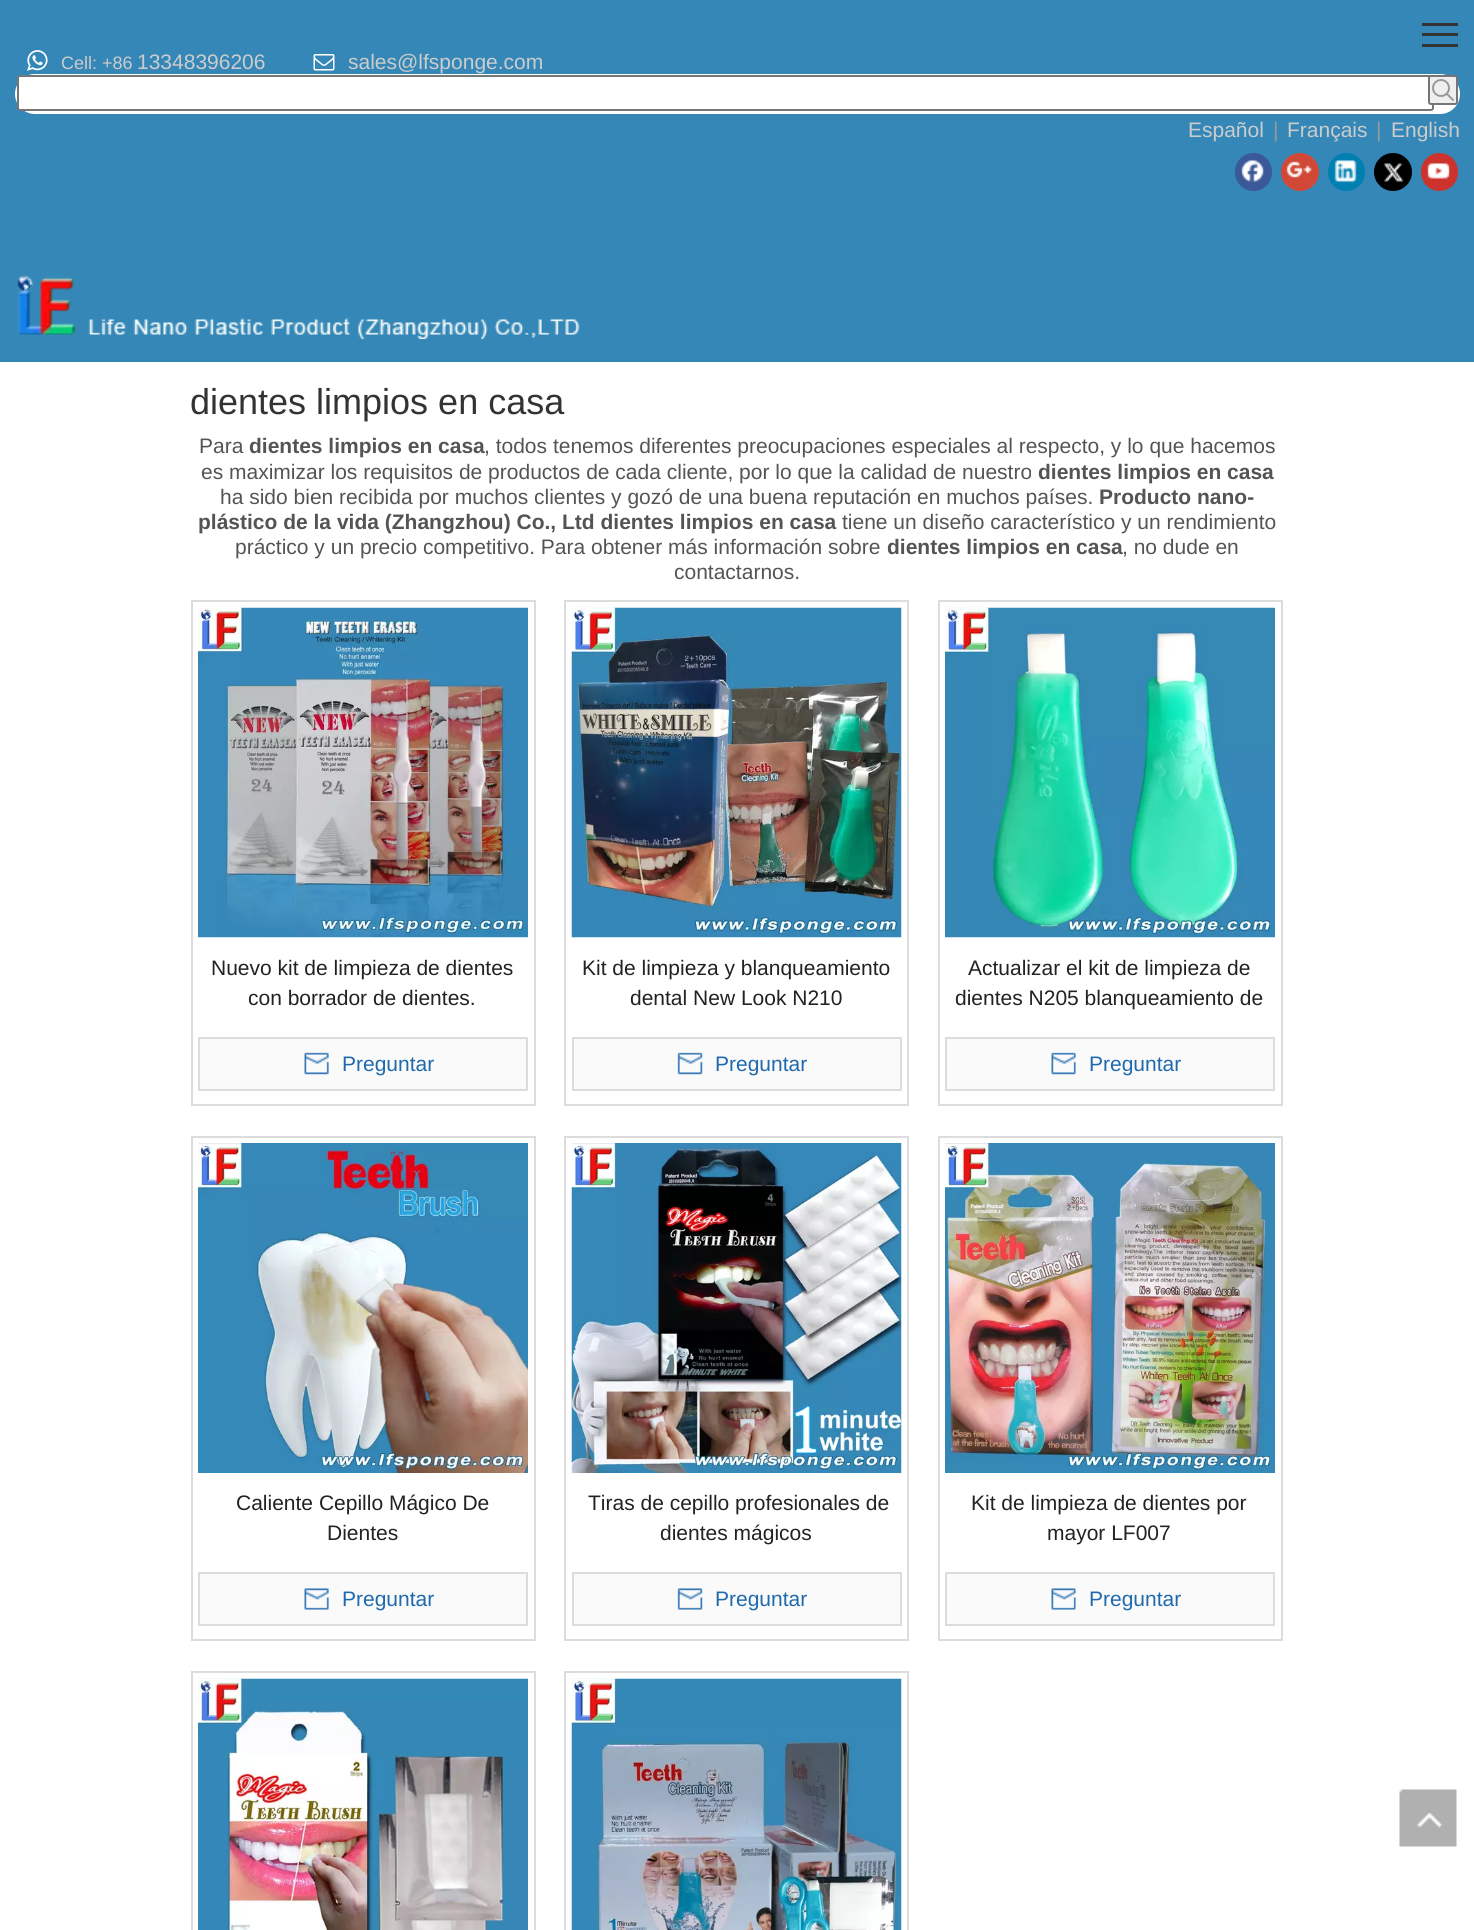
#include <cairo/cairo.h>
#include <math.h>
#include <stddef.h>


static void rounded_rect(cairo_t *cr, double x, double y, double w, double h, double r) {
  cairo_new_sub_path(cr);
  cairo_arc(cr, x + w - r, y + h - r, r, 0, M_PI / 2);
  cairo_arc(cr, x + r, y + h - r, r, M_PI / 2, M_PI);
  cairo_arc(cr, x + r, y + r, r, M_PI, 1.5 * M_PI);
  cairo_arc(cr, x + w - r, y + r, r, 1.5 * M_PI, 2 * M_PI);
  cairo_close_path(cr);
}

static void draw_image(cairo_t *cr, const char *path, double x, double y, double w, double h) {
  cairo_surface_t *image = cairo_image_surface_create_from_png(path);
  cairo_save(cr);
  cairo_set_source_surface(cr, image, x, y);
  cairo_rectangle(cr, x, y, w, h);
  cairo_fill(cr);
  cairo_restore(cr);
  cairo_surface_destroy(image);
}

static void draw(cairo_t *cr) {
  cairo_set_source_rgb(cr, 1, 1, 1);
  cairo_paint(cr);
  cairo_set_source_rgb(cr, 52 / 255.0, 135 / 255.0, 182 / 255.0);
  cairo_rectangle(cr, 0, 0, 1474, 362);
  cairo_fill(cr);
  cairo_set_source_rgb(cr, 51 / 255.0, 51 / 255.0, 51 / 255.0);
  cairo_rectangle(cr, 1422, 23, 36, 3);
  cairo_fill(cr);
  cairo_rectangle(cr, 1422, 33, 36, 3);
  cairo_fill(cr);
  cairo_rectangle(cr, 1422, 44, 36, 3);
  cairo_fill(cr);
  draw_image(cr, "images/1.png", 17, 275, 563, 64);
  draw_image(cr, "images/2.png", 27, 50, 21, 21);
  draw_image(cr, "images/3.png", 313, 54, 22, 17);
  cairo_set_source_rgb(cr, 1, 1, 1);
  rounded_rect(cr, 16, 75, 1443, 38, 19);
  cairo_fill_preserve(cr);
  cairo_stroke(cr);
  rounded_rect(cr, 18, 76, 1415, 34, 2);
  cairo_fill_preserve(cr);
  cairo_set_source_rgb(cr, 118 / 255.0, 118 / 255.0, 118 / 255.0);
  cairo_stroke(cr);
  cairo_set_source_rgb(cr, 239 / 255.0, 239 / 255.0, 239 / 255.0);
  rounded_rect(cr, 1429, 76, 28, 28, 2);
  cairo_fill_preserve(cr);
  cairo_set_source_rgb(cr, 118 / 255.0, 118 / 255.0, 118 / 255.0);
  cairo_stroke(cr);
  draw_image(cr, "images/4.png", 1432, 79, 22, 22);
  cairo_set_source_rgb(cr, 59 / 255.0, 89 / 255.0, 152 / 255.0);
  rounded_rect(cr, 1235, 153, 37, 38, 18.5);
  cairo_fill(cr);
  draw_image(cr, "images/5.png", 1241, 160, 23, 22);
  cairo_set_source_rgb(cr, 209 / 255.0, 72 / 255.0, 54 / 255.0);
  cairo_arc(cr, 1300, 172, 19, 0, 2 * M_PI);
  cairo_fill(cr);
  draw_image(cr, "images/6.png", 1286, 161, 26, 17);
  cairo_set_source_rgb(cr, 0, 127 / 255.0, 177 / 255.0);
  rounded_rect(cr, 1328, 153, 37, 38, 18.5);
  cairo_fill(cr);
  draw_image(cr, "images/7.png", 1334, 160, 23, 22);
  cairo_set_source_rgb(cr, 0, 0, 0);
  cairo_arc(cr, 1393, 172, 19, 0, 2 * M_PI);
  cairo_fill(cr);
  draw_image(cr, "images/8.png", 1383, 163, 21, 19);
  cairo_set_source_rgb(cr, 205 / 255.0, 51 / 255.0, 45 / 255.0);
  rounded_rect(cr, 1421, 153, 37, 38, 18.5);
  cairo_fill(cr);
  draw_image(cr, "images/9.png", 1427, 163, 23, 16);
  cairo_rectangle(cr, 192, 601, 343, 504);
  cairo_set_source_rgb(cr, 220 / 255.0, 220 / 255.0, 220 / 255.0);
  cairo_stroke(cr);
  draw_image(cr, "images/10.png", 198, 607, 330, 331);
  cairo_set_source_rgb(cr, 250 / 255.0, 250 / 255.0, 250 / 255.0);
  cairo_rectangle(cr, 199, 1038, 328, 52);
  cairo_fill_preserve(cr);
  cairo_set_source_rgb(cr, 220 / 255.0, 220 / 255.0, 220 / 255.0);
  cairo_stroke(cr);
  draw_image(cr, "images/11.png", 304, 1052, 25, 23);
  cairo_rectangle(cr, 565, 601, 343, 504);
  cairo_stroke(cr);
  draw_image(cr, "images/12.png", 571, 607, 331, 331);
  cairo_set_source_rgb(cr, 250 / 255.0, 250 / 255.0, 250 / 255.0);
  cairo_rectangle(cr, 573, 1038, 328, 52);
  cairo_fill_preserve(cr);
  cairo_set_source_rgb(cr, 220 / 255.0, 220 / 255.0, 220 / 255.0);
  cairo_stroke(cr);
  draw_image(cr, "images/13.png", 677, 1052, 26, 23);
  cairo_rectangle(cr, 939, 601, 343, 504);
  cairo_stroke(cr);
  draw_image(cr, "images/14.png", 945, 607, 330, 331);
  cairo_set_source_rgb(cr, 250 / 255.0, 250 / 255.0, 250 / 255.0);
  cairo_rectangle(cr, 946, 1038, 328, 52);
  cairo_fill_preserve(cr);
  cairo_set_source_rgb(cr, 220 / 255.0, 220 / 255.0, 220 / 255.0);
  cairo_stroke(cr);
  draw_image(cr, "images/15.png", 1051, 1052, 25, 23);
  cairo_rectangle(cr, 192, 1137, 343, 503);
  cairo_stroke(cr);
  draw_image(cr, "images/16.png", 198, 1143, 330, 330);
  cairo_set_source_rgb(cr, 250 / 255.0, 250 / 255.0, 250 / 255.0);
  cairo_rectangle(cr, 199, 1573, 328, 52);
  cairo_fill_preserve(cr);
  cairo_set_source_rgb(cr, 220 / 255.0, 220 / 255.0, 220 / 255.0);
  cairo_stroke(cr);
  draw_image(cr, "images/17.png", 304, 1588, 25, 22);
  cairo_rectangle(cr, 565, 1137, 343, 503);
  cairo_stroke(cr);
  draw_image(cr, "images/18.png", 571, 1143, 331, 330);
  cairo_set_source_rgb(cr, 250 / 255.0, 250 / 255.0, 250 / 255.0);
  cairo_rectangle(cr, 573, 1573, 328, 52);
  cairo_fill_preserve(cr);
  cairo_set_source_rgb(cr, 220 / 255.0, 220 / 255.0, 220 / 255.0);
  cairo_stroke(cr);
  draw_image(cr, "images/19.png", 677, 1588, 26, 22);
  cairo_rectangle(cr, 939, 1137, 343, 503);
  cairo_stroke(cr);
  draw_image(cr, "images/20.png", 945, 1143, 330, 330);
  cairo_set_source_rgb(cr, 250 / 255.0, 250 / 255.0, 250 / 255.0);
  cairo_rectangle(cr, 946, 1573, 328, 52);
  cairo_fill_preserve(cr);
  cairo_set_source_rgb(cr, 220 / 255.0, 220 / 255.0, 220 / 255.0);
  cairo_stroke(cr);
  draw_image(cr, "images/21.png", 1051, 1588, 25, 22);
  cairo_rectangle(cr, 192, 1672, 343, 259);
  cairo_stroke(cr);
  draw_image(cr, "images/22.png", 198, 1678, 330, 252);
  cairo_rectangle(cr, 565, 1672, 343, 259);
  cairo_stroke(cr);
  draw_image(cr, "images/23.png", 571, 1678, 331, 252);
  draw_image(cr, "images/24.png", 1399, 1789, 58, 58);
  cairo_select_font_face(cr, "Liberation Sans", CAIRO_FONT_SLANT_NORMAL, CAIRO_FONT_WEIGHT_NORMAL);
  cairo_set_font_size(cr, 18);
  cairo_set_source_rgb(cr, 204 / 255.0, 204 / 255.0, 204 / 255.0);
  cairo_move_to(cr, 61, 69);
  cairo_show_text(cr, "Cell: +86");
  cairo_set_font_size(cr, 21);
  cairo_move_to(cr, 137, 69);
  cairo_show_text(cr, "13348396206");
  cairo_move_to(cr, 348, 69);
  cairo_show_text(cr, "sales@lfsponge.com");
  cairo_move_to(cr, 1188, 137);
  cairo_show_text(cr, "Español");
  cairo_set_source_rgb(cr, 153 / 255.0, 153 / 255.0, 153 / 255.0);
  cairo_move_to(cr, 1273, 137);
  cairo_show_text(cr, "|");
  cairo_set_source_rgb(cr, 204 / 255.0, 204 / 255.0, 204 / 255.0);
  cairo_move_to(cr, 1287, 137);
  cairo_show_text(cr, "Français");
  cairo_set_source_rgb(cr, 153 / 255.0, 153 / 255.0, 153 / 255.0);
  cairo_move_to(cr, 1376, 137);
  cairo_show_text(cr, "|");
  cairo_set_source_rgb(cr, 204 / 255.0, 204 / 255.0, 204 / 255.0);
  cairo_move_to(cr, 1391, 137);
  cairo_show_text(cr, "English");
  cairo_set_font_size(cr, 36);
  cairo_set_source_rgb(cr, 51 / 255.0, 51 / 255.0, 51 / 255.0);
  cairo_move_to(cr, 190, 414);
  cairo_show_text(cr, "dientes limpios en casa");
  cairo_set_font_size(cr, 21);
  cairo_set_source_rgb(cr, 84 / 255.0, 84 / 255.0, 84 / 255.0);
  cairo_move_to(cr, 199, 453);
  cairo_show_text(cr, "Para");
  cairo_select_font_face(cr, "Liberation Sans", CAIRO_FONT_SLANT_NORMAL, CAIRO_FONT_WEIGHT_BOLD);
  cairo_move_to(cr, 249, 453);
  cairo_show_text(cr, "dientes limpios en casa");
  cairo_select_font_face(cr, "Liberation Sans", CAIRO_FONT_SLANT_NORMAL, CAIRO_FONT_WEIGHT_NORMAL);
  cairo_move_to(cr, 484, 453);
  cairo_show_text(cr, ", todos tenemos diferentes preocupaciones especiales al respecto, y lo que hacemos");
  cairo_move_to(cr, 201, 479);
  cairo_show_text(cr, "es maximizar los requisitos de productos de cada cliente, por lo que la calidad de nuestro");
  cairo_select_font_face(cr, "Liberation Sans", CAIRO_FONT_SLANT_NORMAL, CAIRO_FONT_WEIGHT_BOLD);
  cairo_move_to(cr, 1038, 479);
  cairo_show_text(cr, "dientes limpios en casa");
  cairo_select_font_face(cr, "Liberation Sans", CAIRO_FONT_SLANT_NORMAL, CAIRO_FONT_WEIGHT_NORMAL);
  cairo_move_to(cr, 220, 504);
  cairo_show_text(cr, "ha sido bien recibida por muchos clientes y gozó de una buena reputación en muchos países.");
  cairo_select_font_face(cr, "Liberation Sans", CAIRO_FONT_SLANT_NORMAL, CAIRO_FONT_WEIGHT_BOLD);
  cairo_move_to(cr, 1099, 504);
  cairo_show_text(cr, "Producto nano-");
  cairo_move_to(cr, 198, 529);
  cairo_show_text(cr, "plástico de la vida (Zhangzhou) Co., Ltd dientes limpios en casa");
  cairo_select_font_face(cr, "Liberation Sans", CAIRO_FONT_SLANT_NORMAL, CAIRO_FONT_WEIGHT_NORMAL);
  cairo_move_to(cr, 842, 529);
  cairo_show_text(cr, "tiene un diseño característico y un rendimiento");
  cairo_move_to(cr, 235, 554);
  cairo_show_text(cr, "práctico y un precio competitivo. Para obtener más información sobre");
  cairo_select_font_face(cr, "Liberation Sans", CAIRO_FONT_SLANT_NORMAL, CAIRO_FONT_WEIGHT_BOLD);
  cairo_move_to(cr, 887, 554);
  cairo_show_text(cr, "dientes limpios en casa");
  cairo_select_font_face(cr, "Liberation Sans", CAIRO_FONT_SLANT_NORMAL, CAIRO_FONT_WEIGHT_NORMAL);
  cairo_move_to(cr, 1122, 554);
  cairo_show_text(cr, ", no dude en");
  cairo_move_to(cr, 674, 579);
  cairo_show_text(cr, "contactarnos.");
  cairo_set_source_rgb(cr, 34 / 255.0, 34 / 255.0, 34 / 255.0);
  cairo_move_to(cr, 211, 975);
  cairo_show_text(cr, "Nuevo kit de limpieza de dientes");
  cairo_move_to(cr, 248, 1005);
  cairo_show_text(cr, "con borrador de dientes.");
  cairo_set_source_rgb(cr, 31 / 255.0, 105 / 255.0, 173 / 255.0);
  cairo_move_to(cr, 342, 1071);
  cairo_show_text(cr, "Preguntar");
  cairo_set_source_rgb(cr, 34 / 255.0, 34 / 255.0, 34 / 255.0);
  cairo_move_to(cr, 582, 975);
  cairo_show_text(cr, "Kit de limpieza y blanqueamiento");
  cairo_move_to(cr, 630, 1005);
  cairo_show_text(cr, "dental New Look N210");
  cairo_set_source_rgb(cr, 31 / 255.0, 105 / 255.0, 173 / 255.0);
  cairo_move_to(cr, 715, 1071);
  cairo_show_text(cr, "Preguntar");
  cairo_set_source_rgb(cr, 34 / 255.0, 34 / 255.0, 34 / 255.0);
  cairo_move_to(cr, 968, 975);
  cairo_show_text(cr, "Actualizar el kit de limpieza de");
  cairo_move_to(cr, 955, 1005);
  cairo_show_text(cr, "dientes N205 blanqueamiento de");
  cairo_set_source_rgb(cr, 31 / 255.0, 105 / 255.0, 173 / 255.0);
  cairo_move_to(cr, 1089, 1071);
  cairo_show_text(cr, "Preguntar");
  cairo_set_source_rgb(cr, 34 / 255.0, 34 / 255.0, 34 / 255.0);
  cairo_move_to(cr, 236, 1510);
  cairo_show_text(cr, "Caliente Cepillo Mágico De");
  cairo_move_to(cr, 327, 1540);
  cairo_show_text(cr, "Dientes");
  cairo_set_source_rgb(cr, 31 / 255.0, 105 / 255.0, 173 / 255.0);
  cairo_move_to(cr, 342, 1606);
  cairo_show_text(cr, "Preguntar");
  cairo_set_source_rgb(cr, 34 / 255.0, 34 / 255.0, 34 / 255.0);
  cairo_move_to(cr, 588, 1510);
  cairo_show_text(cr, "Tiras de cepillo profesionales de");
  cairo_move_to(cr, 660, 1540);
  cairo_show_text(cr, "dientes mágicos");
  cairo_set_source_rgb(cr, 31 / 255.0, 105 / 255.0, 173 / 255.0);
  cairo_move_to(cr, 715, 1606);
  cairo_show_text(cr, "Preguntar");
  cairo_set_source_rgb(cr, 34 / 255.0, 34 / 255.0, 34 / 255.0);
  cairo_move_to(cr, 971, 1510);
  cairo_show_text(cr, "Kit de limpieza de dientes por");
  cairo_move_to(cr, 1047, 1540);
  cairo_show_text(cr, "mayor LF007");
  cairo_set_source_rgb(cr, 31 / 255.0, 105 / 255.0, 173 / 255.0);
  cairo_move_to(cr, 1089, 1606);
  cairo_show_text(cr, "Preguntar");
}

int main(void) {
  cairo_surface_t *surface = cairo_image_surface_create(CAIRO_FORMAT_RGB24, 1474, 1930);
  cairo_t *cr = cairo_create(surface);
  cairo_font_options_t *options = cairo_font_options_create();
  cairo_font_options_set_hint_metrics(options, CAIRO_HINT_METRICS_OFF);
  cairo_font_options_set_hint_style(options, CAIRO_HINT_STYLE_NONE);
  cairo_set_font_options(cr, options);
  cairo_set_miter_limit(cr, 4);
  draw(cr);
  cairo_surface_write_to_png(surface, "out.png");
  cairo_font_options_destroy(options);
  cairo_destroy(cr);
  cairo_surface_destroy(surface);
  return 0;
}
